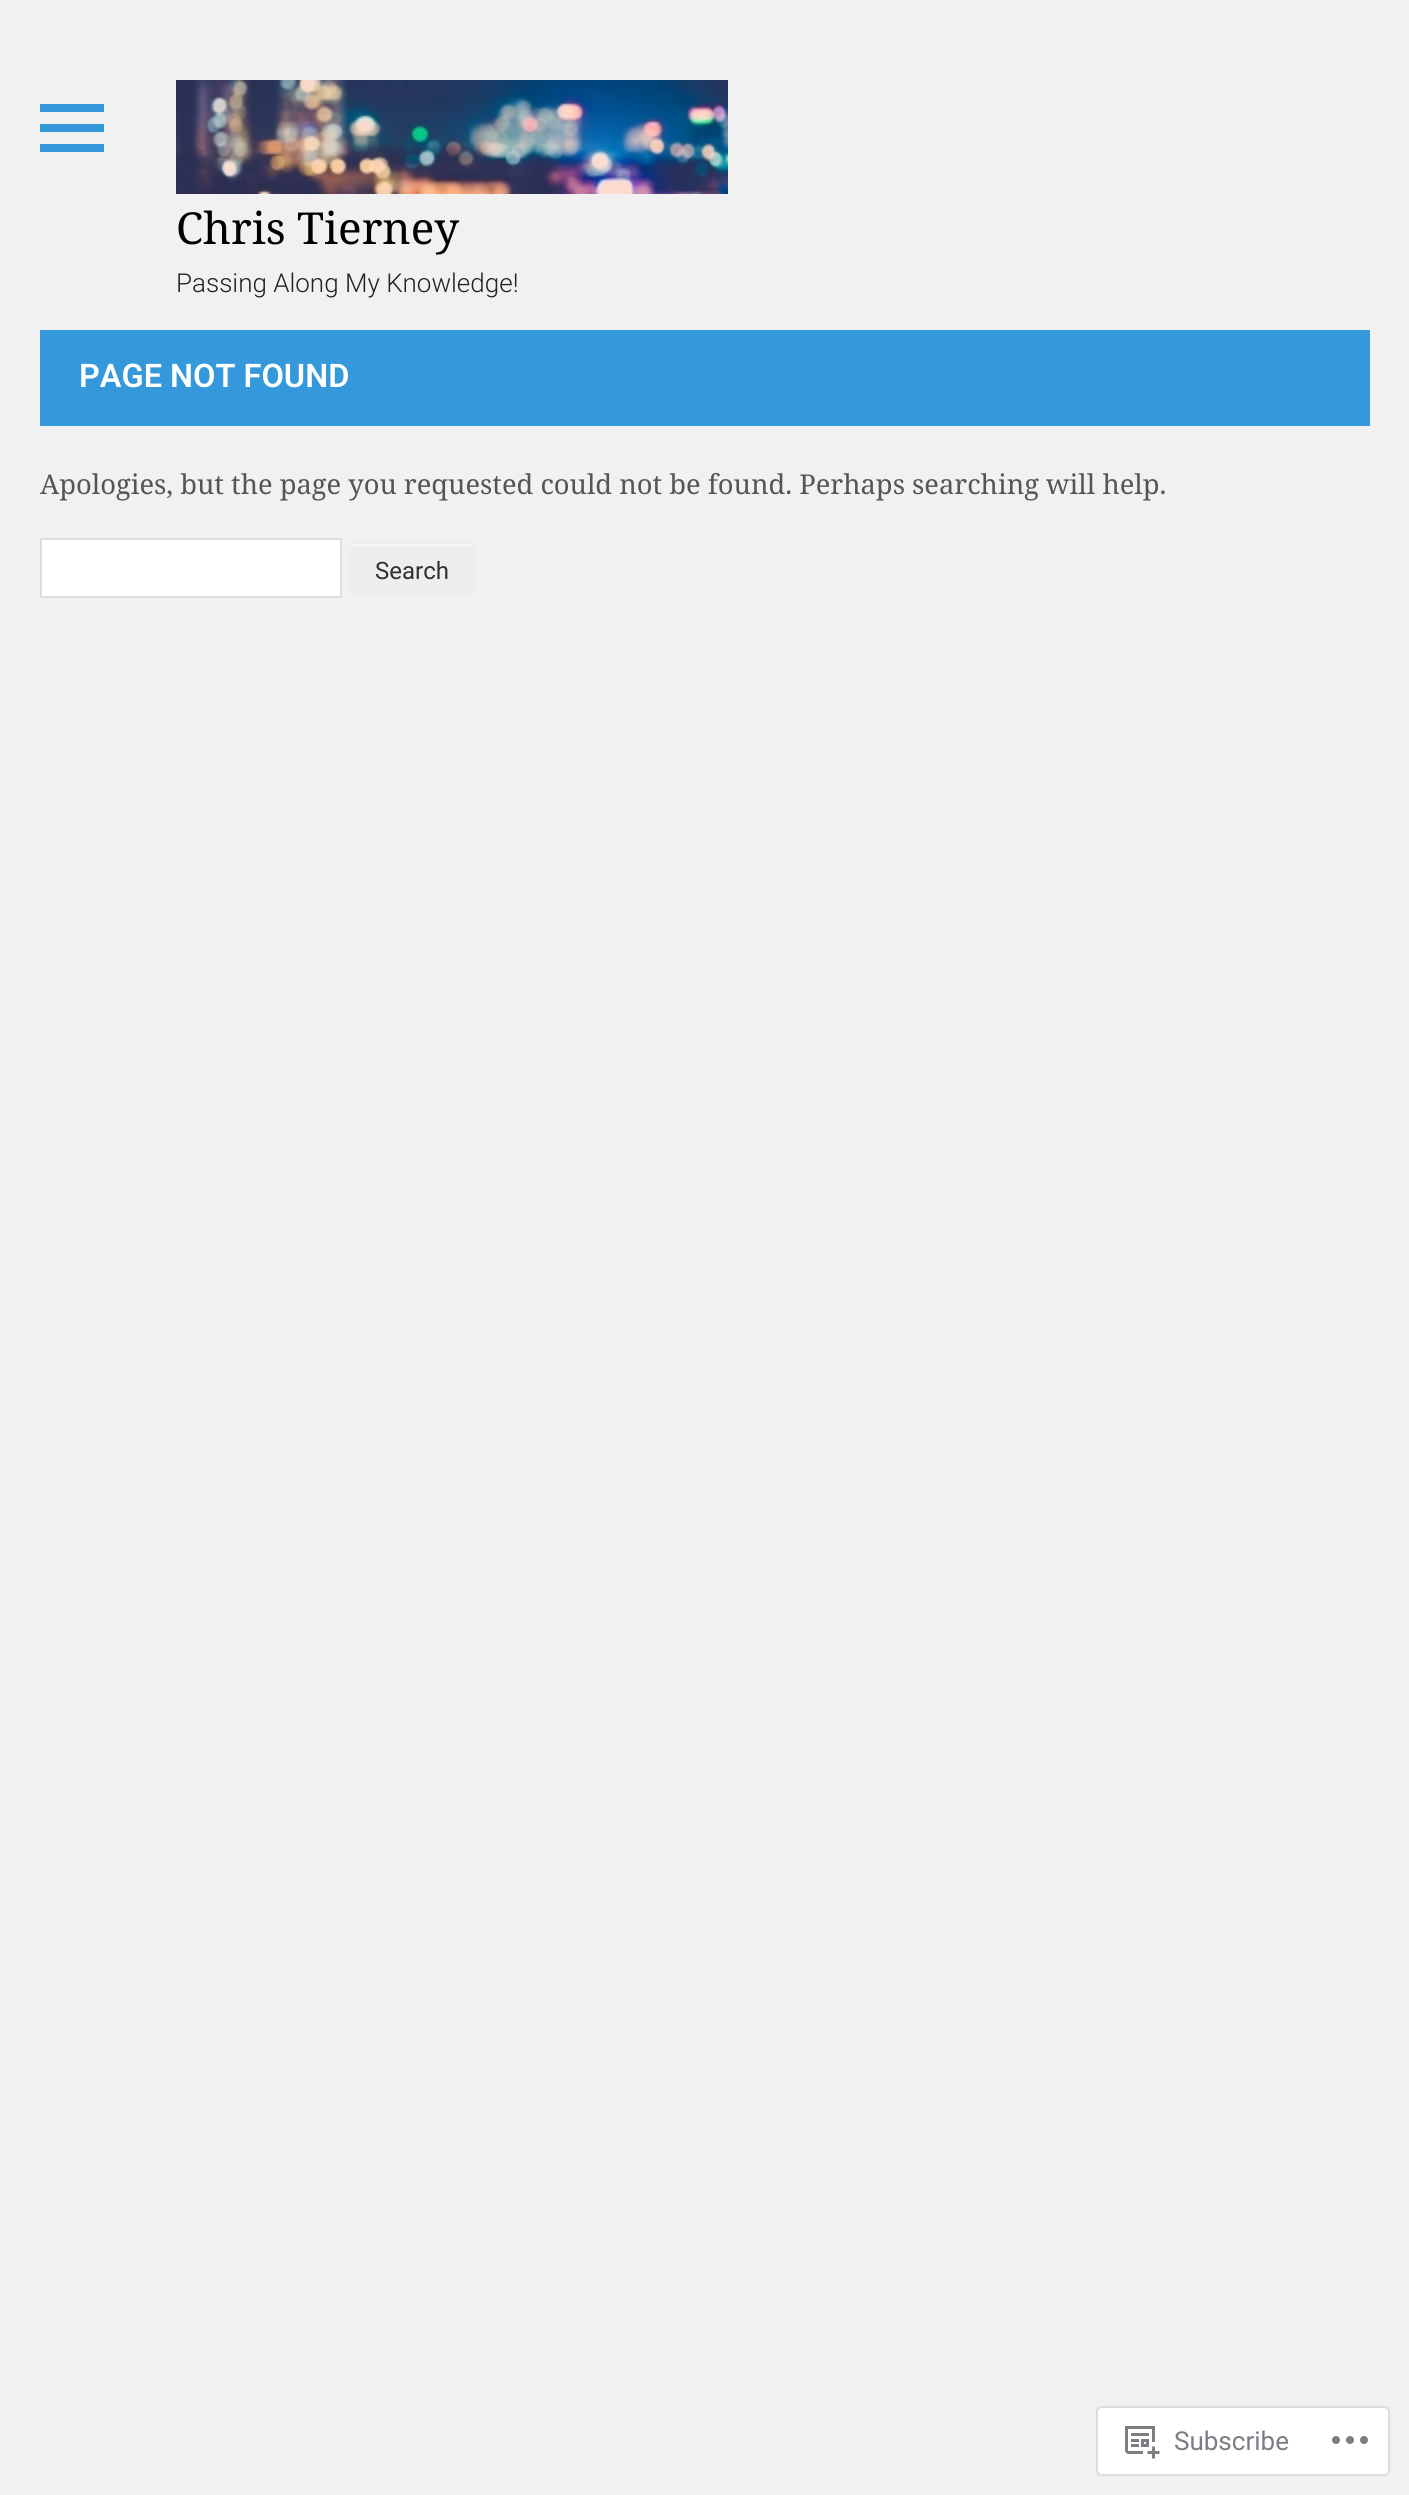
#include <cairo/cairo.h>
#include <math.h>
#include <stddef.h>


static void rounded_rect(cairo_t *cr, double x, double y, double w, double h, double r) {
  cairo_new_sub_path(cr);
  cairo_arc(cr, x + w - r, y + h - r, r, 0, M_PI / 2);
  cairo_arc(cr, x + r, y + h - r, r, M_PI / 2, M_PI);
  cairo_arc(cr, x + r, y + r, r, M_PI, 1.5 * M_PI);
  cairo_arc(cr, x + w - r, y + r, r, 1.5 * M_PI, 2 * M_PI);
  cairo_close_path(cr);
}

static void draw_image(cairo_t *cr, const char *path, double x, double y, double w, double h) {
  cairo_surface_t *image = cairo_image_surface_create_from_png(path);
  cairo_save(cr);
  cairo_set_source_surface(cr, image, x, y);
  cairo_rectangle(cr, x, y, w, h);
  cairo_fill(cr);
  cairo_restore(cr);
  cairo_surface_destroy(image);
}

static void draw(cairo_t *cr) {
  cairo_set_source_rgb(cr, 241 / 255.0, 241 / 255.0, 241 / 255.0);
  cairo_paint(cr);
  cairo_set_source_rgb(cr, 52 / 255.0, 152 / 255.0, 219 / 255.0);
  cairo_new_path(cr);
  cairo_move_to(cr, 40, 152);
  cairo_line_to(cr, 40, 144);
  cairo_line_to(cr, 104, 144);
  cairo_line_to(cr, 104, 152);
  cairo_close_path(cr);
  cairo_move_to(cr, 40, 104);
  cairo_line_to(cr, 104, 104);
  cairo_line_to(cr, 104, 112);
  cairo_line_to(cr, 40, 112);
  cairo_close_path(cr);
  cairo_move_to(cr, 40, 132);
  cairo_line_to(cr, 40, 124);
  cairo_line_to(cr, 104, 124);
  cairo_line_to(cr, 104, 132);
  cairo_close_path(cr);
  cairo_fill(cr);
  draw_image(cr, "images/1.png", 176, 80, 552, 114);
  cairo_rectangle(cr, 40, 330, 1330, 96);
  cairo_fill(cr);
  cairo_set_source_rgb(cr, 1, 1, 1);
  cairo_rectangle(cr, 41, 539, 300, 58);
  cairo_fill_preserve(cr);
  cairo_set_source_rgb(cr, 221 / 255.0, 221 / 255.0, 221 / 255.0);
  cairo_stroke(cr);
  cairo_set_source_rgb(cr, 238 / 255.0, 238 / 255.0, 238 / 255.0);
  rounded_rect(cr, 348, 542, 126, 52, 4);
  cairo_fill(cr);
  cairo_set_source_rgb(cr, 247 / 255.0, 247 / 255.0, 247 / 255.0);
  cairo_new_path(cr);
  cairo_move_to(cr, 352, 546);
  cairo_line_to(cr, 470, 546);
  cairo_line_to(cr, 472, 547);
  cairo_line_to(cr, 472, 548);
  cairo_line_to(cr, 472, 546);
  cairo_curve_to(cr, 472, 545, 471, 544, 470, 544);
  cairo_line_to(cr, 352, 544);
  cairo_curve_to(cr, 351, 544, 350, 545, 350, 546);
  cairo_line_to(cr, 350, 548);
  cairo_curve_to(cr, 350, 547, 351, 546, 352, 546);
  cairo_close_path(cr);
  cairo_fill(cr);
  cairo_set_source_rgb(cr, 1, 1, 1);
  rounded_rect(cr, 1097, 2407, 292, 68, 5);
  cairo_fill_preserve(cr);
  cairo_set_source_rgb(cr, 220 / 255.0, 220 / 255.0, 222 / 255.0);
  cairo_stroke(cr);
  draw_image(cr, "images/2.png", 1125, 2426, 35, 33);
  draw_image(cr, "images/3.png", 1332, 2436, 36, 8);
  cairo_select_font_face(cr, "Noto Serif", CAIRO_FONT_SLANT_NORMAL, CAIRO_FONT_WEIGHT_NORMAL);
  cairo_set_font_size(cr, 44);
  cairo_set_source_rgb(cr, 0, 0, 0);
  cairo_move_to(cr, 176, 244);
  cairo_show_text(cr, "Chris Tierney");
  cairo_select_font_face(cr, "Roboto Light", CAIRO_FONT_SLANT_NORMAL, CAIRO_FONT_WEIGHT_NORMAL);
  cairo_set_font_size(cr, 26);
  cairo_set_source_rgb(cr, 34 / 255.0, 34 / 255.0, 34 / 255.0);
  cairo_move_to(cr, 176, 292);
  cairo_show_text(cr, "Passing Along My Knowledge!");
  cairo_select_font_face(cr, "Roboto SemiBold", CAIRO_FONT_SLANT_NORMAL, CAIRO_FONT_WEIGHT_NORMAL);
  cairo_set_font_size(cr, 32.5);
  cairo_set_source_rgb(cr, 1, 1, 1);
  cairo_move_to(cr, 79, 387);
  cairo_show_text(cr, "PAGE NOT FOUND");
  cairo_select_font_face(cr, "Noto Serif", CAIRO_FONT_SLANT_NORMAL, CAIRO_FONT_WEIGHT_NORMAL);
  cairo_set_font_size(cr, 27.3);
  cairo_set_source_rgb(cr, 85 / 255.0, 85 / 255.0, 85 / 255.0);
  cairo_move_to(cr, 40, 494);
  cairo_show_text(cr, "Apologies, but the page you requested could not be found. Perhaps searching will help.");
  cairo_select_font_face(cr, "Roboto", CAIRO_FONT_SLANT_NORMAL, CAIRO_FONT_WEIGHT_NORMAL);
  cairo_set_font_size(cr, 24);
  cairo_set_source_rgb(cr, 48 / 255.0, 48 / 255.0, 48 / 255.0);
  cairo_move_to(cr, 375, 579);
  cairo_show_text(cr, "Search");
  cairo_set_font_size(cr, 26);
  cairo_set_source_rgb(cr, 122 / 255.0, 126 / 255.0, 132 / 255.0);
  cairo_move_to(cr, 1174, 2450);
  cairo_show_text(cr, "Subscribe");
}

int main(void) {
  cairo_surface_t *surface = cairo_image_surface_create(CAIRO_FORMAT_RGB24, 1409, 2495);
  cairo_t *cr = cairo_create(surface);
  cairo_font_options_t *options = cairo_font_options_create();
  cairo_font_options_set_hint_metrics(options, CAIRO_HINT_METRICS_OFF);
  cairo_font_options_set_hint_style(options, CAIRO_HINT_STYLE_NONE);
  cairo_set_font_options(cr, options);
  cairo_set_miter_limit(cr, 4);
  draw(cr);
  cairo_surface_write_to_png(surface, "out.png");
  cairo_font_options_destroy(options);
  cairo_destroy(cr);
  cairo_surface_destroy(surface);
  return 0;
}
